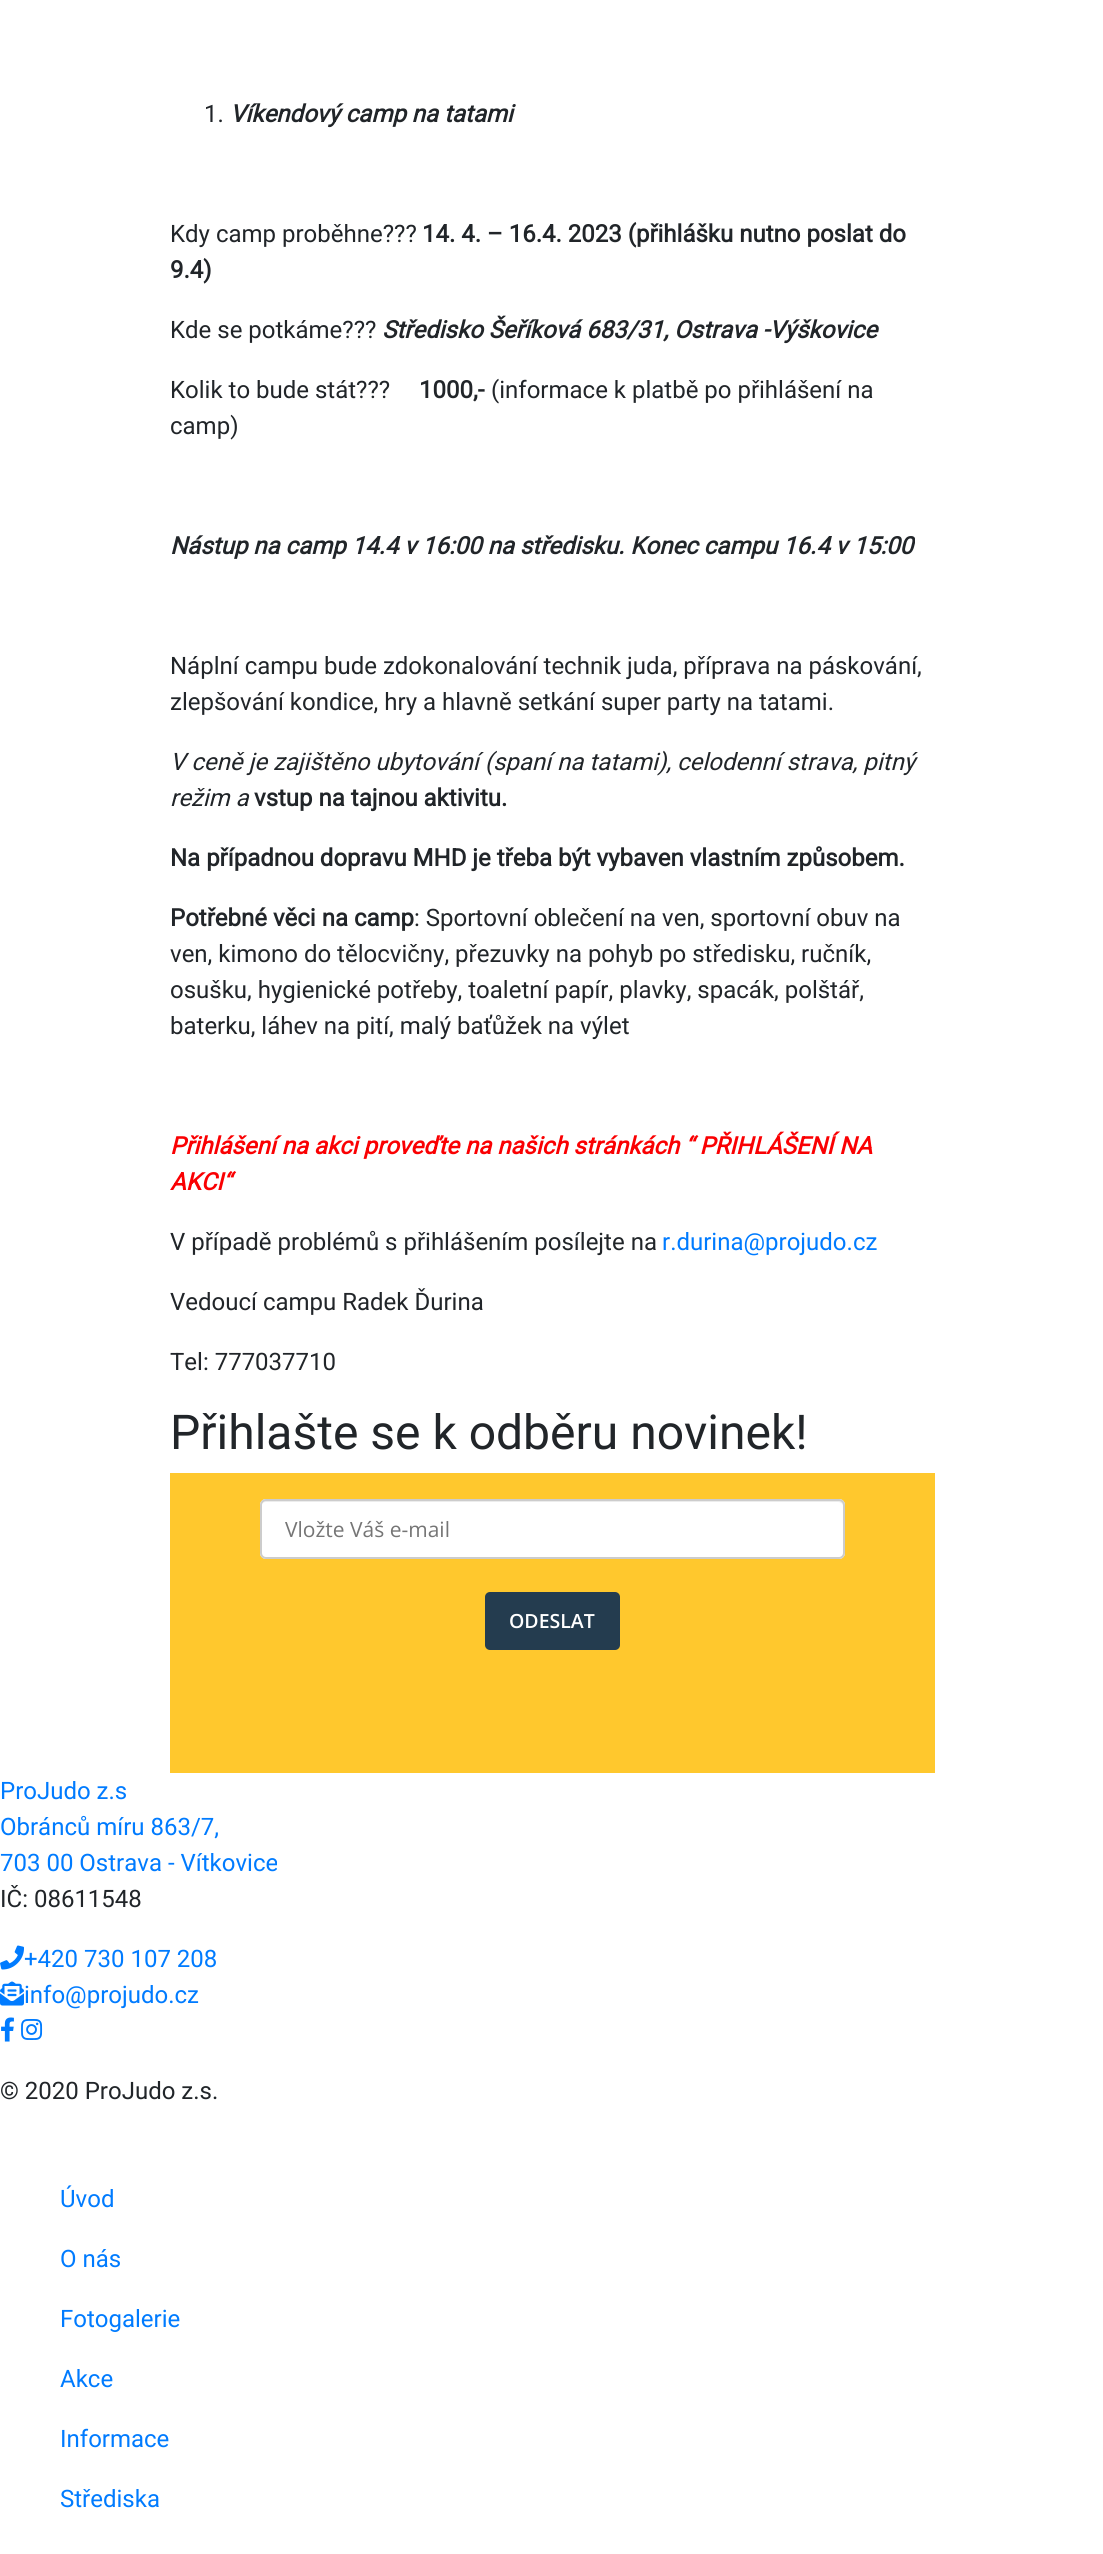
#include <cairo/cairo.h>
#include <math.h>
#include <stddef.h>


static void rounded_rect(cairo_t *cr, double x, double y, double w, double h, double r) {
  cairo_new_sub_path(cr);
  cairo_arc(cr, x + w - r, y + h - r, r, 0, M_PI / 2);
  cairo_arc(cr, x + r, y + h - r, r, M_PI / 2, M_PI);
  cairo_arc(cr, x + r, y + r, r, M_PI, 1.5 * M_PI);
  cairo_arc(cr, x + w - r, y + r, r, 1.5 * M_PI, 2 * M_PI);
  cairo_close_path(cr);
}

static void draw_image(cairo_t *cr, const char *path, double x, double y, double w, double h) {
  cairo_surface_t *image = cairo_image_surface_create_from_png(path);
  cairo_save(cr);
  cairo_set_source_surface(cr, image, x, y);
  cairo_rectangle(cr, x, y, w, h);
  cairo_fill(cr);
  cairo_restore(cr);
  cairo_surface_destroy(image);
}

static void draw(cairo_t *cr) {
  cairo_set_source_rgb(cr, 1, 1, 1);
  cairo_paint(cr);
  cairo_set_source_rgb(cr, 1, 200 / 255.0, 45 / 255.0);
  cairo_rectangle(cr, 170, 1473, 765, 300);
  cairo_fill(cr);
  cairo_set_source_rgb(cr, 1, 1, 1);
  rounded_rect(cr, 260, 1499, 585, 60, 6);
  cairo_fill(cr);
  cairo_set_source_rgb(cr, 236 / 255.0, 236 / 255.0, 236 / 255.0);
  cairo_new_path(cr);
  cairo_move_to(cr, 266, 1502);
  cairo_line_to(cr, 838, 1502);
  cairo_curve_to(cr, 841, 1502, 843, 1504, 843, 1506);
  cairo_line_to(cr, 843, 1505);
  cairo_curve_to(cr, 843, 1502, 841, 1500, 838, 1500);
  cairo_line_to(cr, 266, 1500);
  cairo_curve_to(cr, 263, 1500, 261, 1502, 261, 1505);
  cairo_line_to(cr, 261, 1506);
  cairo_curve_to(cr, 261, 1504, 263, 1502, 266, 1502);
  cairo_close_path(cr);
  cairo_fill(cr);
  rounded_rect(cr, 261, 1500, 583, 58, 5);
  cairo_set_source_rgb(cr, 204 / 255.0, 204 / 255.0, 204 / 255.0);
  cairo_stroke(cr);
  cairo_set_source_rgb(cr, 36 / 255.0, 60 / 255.0, 79 / 255.0);
  rounded_rect(cr, 485, 1592, 135, 58, 5);
  cairo_fill(cr);
  draw_image(cr, "images/1.png", 0, 1945, 24, 25);
  draw_image(cr, "images/2.png", 0, 1981, 24, 25);
  draw_image(cr, "images/3.png", 1, 2017, 13, 25);
  draw_image(cr, "images/4.png", 21, 2019, 22, 21);
  cairo_select_font_face(cr, "Roboto", CAIRO_FONT_SLANT_NORMAL, CAIRO_FONT_WEIGHT_NORMAL);
  cairo_set_font_size(cr, 24);
  cairo_set_source_rgb(cr, 33 / 255.0, 37 / 255.0, 41 / 255.0);
  cairo_move_to(cr, 204, 122);
  cairo_show_text(cr, "1.");
  cairo_select_font_face(cr, "Roboto", CAIRO_FONT_SLANT_ITALIC, CAIRO_FONT_WEIGHT_BOLD);
  cairo_move_to(cr, 230, 122);
  cairo_show_text(cr, "Víkendový camp na tatami");
  cairo_select_font_face(cr, "Roboto", CAIRO_FONT_SLANT_NORMAL, CAIRO_FONT_WEIGHT_NORMAL);
  cairo_move_to(cr, 170, 242);
  cairo_show_text(cr, "Kdy camp proběhne?\077?");
  cairo_select_font_face(cr, "Roboto", CAIRO_FONT_SLANT_NORMAL, CAIRO_FONT_WEIGHT_BOLD);
  cairo_move_to(cr, 422, 242);
  cairo_show_text(cr, "14. 4. – 16.4. 2023 (přihlášku nutno poslat do");
  cairo_move_to(cr, 170, 278);
  cairo_show_text(cr, "9.4)");
  cairo_select_font_face(cr, "Roboto", CAIRO_FONT_SLANT_NORMAL, CAIRO_FONT_WEIGHT_NORMAL);
  cairo_move_to(cr, 170, 338);
  cairo_show_text(cr, "Kde se potkáme?\077?");
  cairo_select_font_face(cr, "Roboto", CAIRO_FONT_SLANT_ITALIC, CAIRO_FONT_WEIGHT_BOLD);
  cairo_move_to(cr, 382, 338);
  cairo_show_text(cr, "Středisko Šeříková 683/31, Ostrava -Výškovice");
  cairo_select_font_face(cr, "Roboto", CAIRO_FONT_SLANT_NORMAL, CAIRO_FONT_WEIGHT_NORMAL);
  cairo_move_to(cr, 170, 398);
  cairo_show_text(cr, "Kolik to bude stát?\077?");
  cairo_select_font_face(cr, "Roboto", CAIRO_FONT_SLANT_NORMAL, CAIRO_FONT_WEIGHT_BOLD);
  cairo_move_to(cr, 419, 398);
  cairo_show_text(cr, "1000,-");
  cairo_select_font_face(cr, "Roboto", CAIRO_FONT_SLANT_NORMAL, CAIRO_FONT_WEIGHT_NORMAL);
  cairo_move_to(cr, 491, 398);
  cairo_show_text(cr, "(informace k platbě po přihlášení na");
  cairo_move_to(cr, 170, 434);
  cairo_show_text(cr, "camp)");
  cairo_select_font_face(cr, "Roboto", CAIRO_FONT_SLANT_ITALIC, CAIRO_FONT_WEIGHT_BOLD);
  cairo_move_to(cr, 170, 554);
  cairo_show_text(cr, "Nástup na camp 14.4 v 16:00 na středisku. Konec campu 16.4 v 15:00");
  cairo_select_font_face(cr, "Roboto", CAIRO_FONT_SLANT_NORMAL, CAIRO_FONT_WEIGHT_NORMAL);
  cairo_move_to(cr, 170, 674);
  cairo_show_text(cr, "Náplní campu bude zdokonalování technik juda, příprava na páskování,");
  cairo_move_to(cr, 170, 710);
  cairo_show_text(cr, "zlepšování kondice, hry a hlavně setkání super party na tatami.");
  cairo_select_font_face(cr, "Roboto", CAIRO_FONT_SLANT_ITALIC, CAIRO_FONT_WEIGHT_NORMAL);
  cairo_move_to(cr, 170, 770);
  cairo_show_text(cr, "V ceně je zajištěno ubytování (spaní na tatami), celodenní strava, pitný");
  cairo_move_to(cr, 170, 806);
  cairo_show_text(cr, "režim a");
  cairo_select_font_face(cr, "Roboto", CAIRO_FONT_SLANT_NORMAL, CAIRO_FONT_WEIGHT_BOLD);
  cairo_move_to(cr, 254, 806);
  cairo_show_text(cr, "vstup na tajnou aktivitu.");
  cairo_move_to(cr, 170, 866);
  cairo_show_text(cr, "Na případnou dopravu MHD je třeba být vybaven vlastním způsobem.");
  cairo_move_to(cr, 170, 926);
  cairo_show_text(cr, "Potřebné věci na camp");
  cairo_select_font_face(cr, "Roboto", CAIRO_FONT_SLANT_NORMAL, CAIRO_FONT_WEIGHT_NORMAL);
  cairo_move_to(cr, 414, 926);
  cairo_show_text(cr, ": Sportovní oblečení na ven, sportovní obuv na");
  cairo_move_to(cr, 170, 962);
  cairo_show_text(cr, "ven, kimono do tělocvičny, přezuvky na pohyb po středisku, ručník,");
  cairo_move_to(cr, 170, 998);
  cairo_show_text(cr, "osušku, hygienické potřeby, toaletní papír, plavky, spacák, polštář,");
  cairo_move_to(cr, 170, 1034);
  cairo_show_text(cr, "baterku, láhev na pití, malý baťůžek na výlet");
  cairo_select_font_face(cr, "Roboto", CAIRO_FONT_SLANT_ITALIC, CAIRO_FONT_WEIGHT_BOLD);
  cairo_set_source_rgb(cr, 250 / 255.0, 0, 2 / 255.0);
  cairo_move_to(cr, 170, 1154);
  cairo_show_text(cr, "Přihlášení na akci proveďte na našich stránkách “ PŘIHLÁŠENÍ NA");
  cairo_move_to(cr, 170, 1190);
  cairo_show_text(cr, "AKCI“");
  cairo_select_font_face(cr, "Roboto", CAIRO_FONT_SLANT_NORMAL, CAIRO_FONT_WEIGHT_NORMAL);
  cairo_set_source_rgb(cr, 33 / 255.0, 37 / 255.0, 41 / 255.0);
  cairo_move_to(cr, 170, 1250);
  cairo_show_text(cr, "V případě problémů s přihlášením posílejte na");
  cairo_set_source_rgb(cr, 0, 123 / 255.0, 1);
  cairo_move_to(cr, 662, 1250);
  cairo_show_text(cr, "r.durina@projudo.cz");
  cairo_set_source_rgb(cr, 33 / 255.0, 37 / 255.0, 41 / 255.0);
  cairo_move_to(cr, 170, 1310);
  cairo_show_text(cr, "Vedoucí campu Radek Ďurina");
  cairo_move_to(cr, 170, 1370);
  cairo_show_text(cr, "Tel: 777037710");
  cairo_set_font_size(cr, 48);
  cairo_move_to(cr, 170, 1449);
  cairo_show_text(cr, "Přihlašte se k odběru novinek!");
  cairo_select_font_face(cr, "Open Sans", CAIRO_FONT_SLANT_NORMAL, CAIRO_FONT_WEIGHT_NORMAL);
  cairo_set_font_size(cr, 21);
  cairo_set_source_rgb(cr, 117 / 255.0, 117 / 255.0, 117 / 255.0);
  cairo_move_to(cr, 285, 1537);
  cairo_show_text(cr, "Vložte Váš e-mail");
  cairo_select_font_face(cr, "Open Sans SemiBold", CAIRO_FONT_SLANT_NORMAL, CAIRO_FONT_WEIGHT_NORMAL);
  cairo_set_font_size(cr, 19.5);
  cairo_set_source_rgb(cr, 1, 1, 1);
  cairo_move_to(cr, 509, 1628);
  cairo_show_text(cr, "ODESLAT");
  cairo_select_font_face(cr, "Roboto", CAIRO_FONT_SLANT_NORMAL, CAIRO_FONT_WEIGHT_NORMAL);
  cairo_set_font_size(cr, 24);
  cairo_set_source_rgb(cr, 0, 123 / 255.0, 1);
  cairo_move_to(cr, 0, 1799);
  cairo_show_text(cr, "ProJudo z.s");
  cairo_move_to(cr, 0, 1835);
  cairo_show_text(cr, "Obránců míru 863/7,");
  cairo_move_to(cr, 0, 1871);
  cairo_show_text(cr, "703 00 Ostrava - Vítkovice");
  cairo_set_source_rgb(cr, 33 / 255.0, 37 / 255.0, 41 / 255.0);
  cairo_move_to(cr, 0, 1907);
  cairo_show_text(cr, "IČ: 08611548");
  cairo_set_source_rgb(cr, 0, 123 / 255.0, 1);
  cairo_move_to(cr, 24, 1967);
  cairo_show_text(cr, "+420 730 107 208");
  cairo_move_to(cr, 24, 2003);
  cairo_show_text(cr, "info@projudo.cz");
  cairo_set_source_rgb(cr, 33 / 255.0, 37 / 255.0, 41 / 255.0);
  cairo_move_to(cr, 0, 2099);
  cairo_show_text(cr, "© 2020 ProJudo z.s.");
  cairo_set_source_rgb(cr, 0, 123 / 255.0, 1);
  cairo_move_to(cr, 60, 2207);
  cairo_show_text(cr, "Úvod");
  cairo_move_to(cr, 60, 2267);
  cairo_show_text(cr, "O nás");
  cairo_move_to(cr, 60, 2327);
  cairo_show_text(cr, "Fotogalerie");
  cairo_move_to(cr, 60, 2387);
  cairo_show_text(cr, "Akce");
  cairo_move_to(cr, 60, 2447);
  cairo_show_text(cr, "Informace");
  cairo_move_to(cr, 60, 2507);
  cairo_show_text(cr, "Střediska");
}

int main(void) {
  cairo_surface_t *surface = cairo_image_surface_create(CAIRO_FORMAT_RGB24, 1103, 2554);
  cairo_t *cr = cairo_create(surface);
  cairo_font_options_t *options = cairo_font_options_create();
  cairo_font_options_set_hint_metrics(options, CAIRO_HINT_METRICS_OFF);
  cairo_font_options_set_hint_style(options, CAIRO_HINT_STYLE_NONE);
  cairo_set_font_options(cr, options);
  cairo_set_miter_limit(cr, 4);
  draw(cr);
  cairo_surface_write_to_png(surface, "out.png");
  cairo_font_options_destroy(options);
  cairo_destroy(cr);
  cairo_surface_destroy(surface);
  return 0;
}
